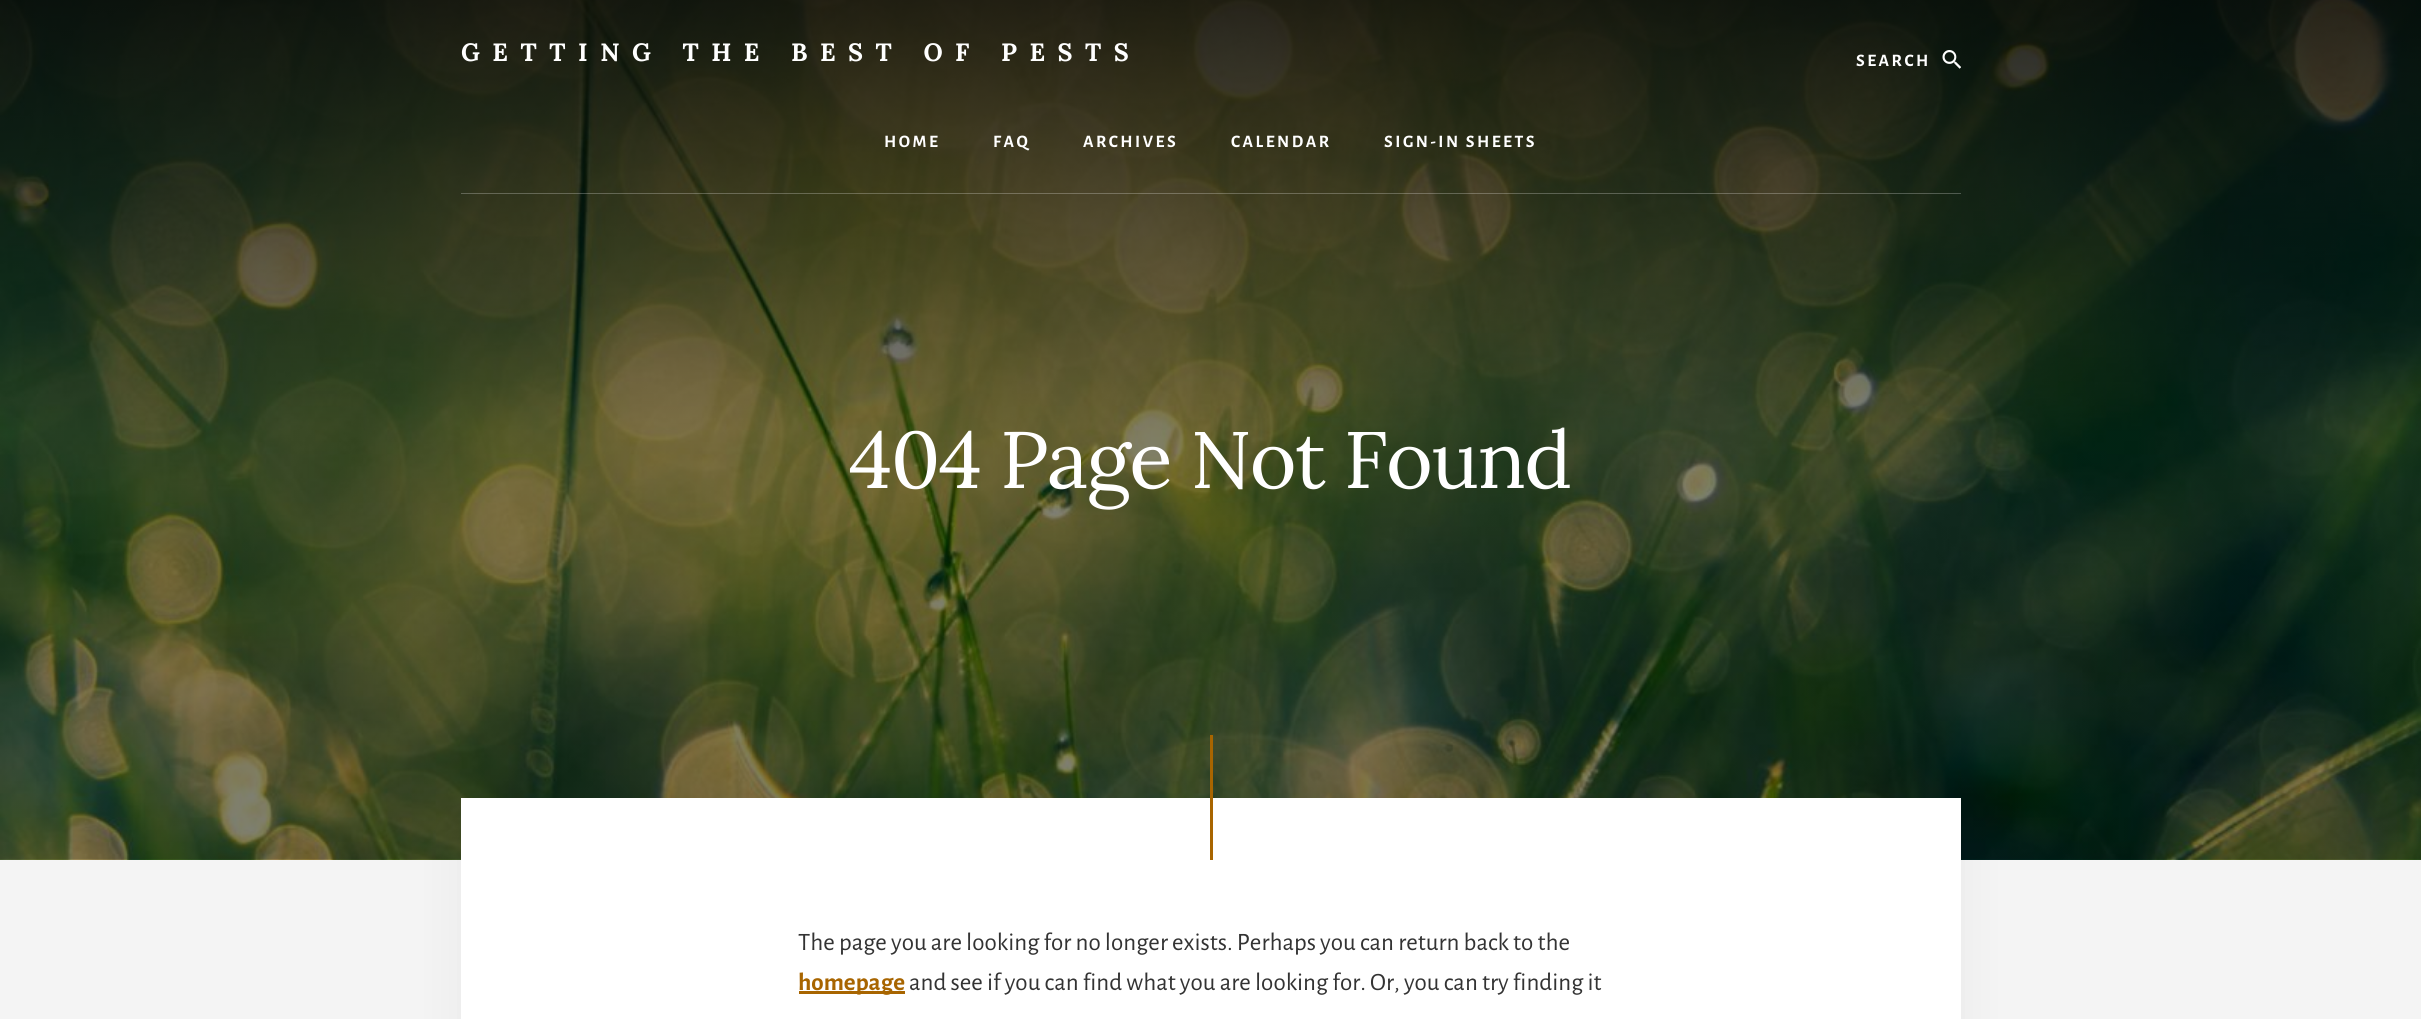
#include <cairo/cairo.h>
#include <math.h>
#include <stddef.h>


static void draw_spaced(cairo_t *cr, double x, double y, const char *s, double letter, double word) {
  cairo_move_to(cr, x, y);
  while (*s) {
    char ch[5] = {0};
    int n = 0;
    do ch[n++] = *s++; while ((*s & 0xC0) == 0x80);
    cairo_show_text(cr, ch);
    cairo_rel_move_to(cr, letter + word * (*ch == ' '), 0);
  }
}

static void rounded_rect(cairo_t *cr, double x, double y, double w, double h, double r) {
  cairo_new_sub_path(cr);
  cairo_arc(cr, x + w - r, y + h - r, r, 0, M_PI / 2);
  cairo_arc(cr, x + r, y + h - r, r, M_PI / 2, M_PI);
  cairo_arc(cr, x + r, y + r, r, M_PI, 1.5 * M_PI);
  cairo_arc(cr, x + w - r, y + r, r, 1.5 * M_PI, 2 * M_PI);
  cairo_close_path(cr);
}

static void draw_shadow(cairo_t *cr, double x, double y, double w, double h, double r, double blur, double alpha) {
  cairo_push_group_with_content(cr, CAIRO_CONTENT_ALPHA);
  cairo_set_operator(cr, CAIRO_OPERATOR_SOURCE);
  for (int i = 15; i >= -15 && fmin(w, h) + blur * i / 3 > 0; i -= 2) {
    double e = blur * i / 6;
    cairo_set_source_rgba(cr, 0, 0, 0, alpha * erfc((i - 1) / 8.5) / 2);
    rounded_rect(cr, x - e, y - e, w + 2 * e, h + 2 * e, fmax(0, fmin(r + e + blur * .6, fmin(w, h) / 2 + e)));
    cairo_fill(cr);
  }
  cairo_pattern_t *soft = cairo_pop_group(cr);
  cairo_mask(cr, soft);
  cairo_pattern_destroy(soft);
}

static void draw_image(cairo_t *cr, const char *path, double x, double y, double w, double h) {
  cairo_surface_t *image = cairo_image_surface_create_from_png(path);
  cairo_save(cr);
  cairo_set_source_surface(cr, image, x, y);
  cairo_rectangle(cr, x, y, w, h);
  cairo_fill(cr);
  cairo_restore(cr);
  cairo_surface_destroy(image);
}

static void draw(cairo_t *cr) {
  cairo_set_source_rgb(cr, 244 / 255.0, 244 / 255.0, 244 / 255.0);
  cairo_paint(cr);
  draw_image(cr, "images/1.png", 0, 0, 2421, 860);
  draw_image(cr, "images/2.png", 1942, 50, 19, 19);
  cairo_set_source_rgba(cr, 1, 1, 1, 0.25);
  cairo_rectangle(cr, 461, 193, 1500, 1);
  cairo_fill(cr);
  cairo_set_source_rgb(cr, 0, 0, 0);
  draw_shadow(cr, 461, 829, 1500, 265, 0, 25, 0.05);
  cairo_set_source_rgb(cr, 1, 1, 1);
  cairo_rectangle(cr, 461, 798, 1500, 221);
  cairo_fill(cr);
  cairo_set_source_rgb(cr, 168 / 255.0, 101 / 255.0, 0);
  cairo_rectangle(cr, 1210, 735, 3, 125);
  cairo_fill(cr);
  cairo_rectangle(cr, 799, 991, 106, 3);
  cairo_fill(cr);
  cairo_select_font_face(cr, "Lora", CAIRO_FONT_SLANT_NORMAL, CAIRO_FONT_WEIGHT_BOLD);
  cairo_set_font_size(cr, 25);
  cairo_set_source_rgb(cr, 1, 1, 1);
  draw_spaced(cr, 461, 61, "GETTING THE BEST OF PESTS", 12.5, 0);
  cairo_select_font_face(cr, "Alegreya Sans", CAIRO_FONT_SLANT_NORMAL, CAIRO_FONT_WEIGHT_BOLD);
  cairo_set_font_size(cr, 17.5);
  draw_spaced(cr, 1856, 66, "SEARCH", 2.5, 0);
  draw_spaced(cr, 884, 147, "HOME", 2.5, 0);
  draw_spaced(cr, 993, 147, "FAQ", 2.5, 0);
  draw_spaced(cr, 1083, 147, "ARCHIVES", 2.5, 0);
  draw_spaced(cr, 1231, 147, "CALENDAR", 2.5, 0);
  draw_spaced(cr, 1384, 147, "SIGN-IN SHEETS", 2.5, 0);
  cairo_select_font_face(cr, "Lora", CAIRO_FONT_SLANT_NORMAL, CAIRO_FONT_WEIGHT_NORMAL);
  cairo_set_font_size(cr, 80);
  draw_spaced(cr, 849, 488, "404 Page Not Found", -1.6, 0);
  cairo_select_font_face(cr, "Alegreya Sans", CAIRO_FONT_SLANT_NORMAL, CAIRO_FONT_WEIGHT_NORMAL);
  cairo_set_font_size(cr, 25);
  cairo_set_source_rgb(cr, 51 / 255.0, 51 / 255.0, 51 / 255.0);
  cairo_move_to(cr, 798, 950);
  cairo_show_text(cr, "The page you are looking for no longer exists. Perhaps you can return back to the");
  cairo_select_font_face(cr, "Alegreya Sans", CAIRO_FONT_SLANT_NORMAL, CAIRO_FONT_WEIGHT_BOLD);
  cairo_set_source_rgb(cr, 168 / 255.0, 101 / 255.0, 0);
  cairo_move_to(cr, 798, 990);
  cairo_show_text(cr, "homepage");
  cairo_select_font_face(cr, "Alegreya Sans", CAIRO_FONT_SLANT_NORMAL, CAIRO_FONT_WEIGHT_NORMAL);
  cairo_set_source_rgb(cr, 51 / 255.0, 51 / 255.0, 51 / 255.0);
  cairo_move_to(cr, 909, 990);
  cairo_show_text(cr, "and see if you can find what you are looking for. Or, you can try finding it");
}

int main(void) {
  cairo_surface_t *surface = cairo_image_surface_create(CAIRO_FORMAT_RGB24, 2421, 1019);
  cairo_t *cr = cairo_create(surface);
  cairo_font_options_t *options = cairo_font_options_create();
  cairo_font_options_set_hint_metrics(options, CAIRO_HINT_METRICS_OFF);
  cairo_font_options_set_hint_style(options, CAIRO_HINT_STYLE_NONE);
  cairo_set_font_options(cr, options);
  cairo_set_miter_limit(cr, 4);
  draw(cr);
  cairo_surface_write_to_png(surface, "out.png");
  cairo_font_options_destroy(options);
  cairo_destroy(cr);
  cairo_surface_destroy(surface);
  return 0;
}
